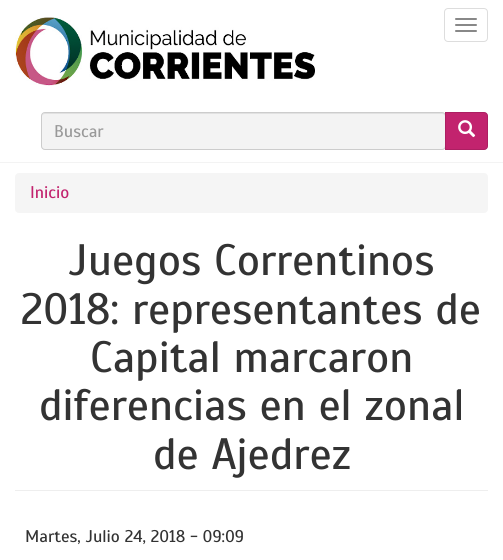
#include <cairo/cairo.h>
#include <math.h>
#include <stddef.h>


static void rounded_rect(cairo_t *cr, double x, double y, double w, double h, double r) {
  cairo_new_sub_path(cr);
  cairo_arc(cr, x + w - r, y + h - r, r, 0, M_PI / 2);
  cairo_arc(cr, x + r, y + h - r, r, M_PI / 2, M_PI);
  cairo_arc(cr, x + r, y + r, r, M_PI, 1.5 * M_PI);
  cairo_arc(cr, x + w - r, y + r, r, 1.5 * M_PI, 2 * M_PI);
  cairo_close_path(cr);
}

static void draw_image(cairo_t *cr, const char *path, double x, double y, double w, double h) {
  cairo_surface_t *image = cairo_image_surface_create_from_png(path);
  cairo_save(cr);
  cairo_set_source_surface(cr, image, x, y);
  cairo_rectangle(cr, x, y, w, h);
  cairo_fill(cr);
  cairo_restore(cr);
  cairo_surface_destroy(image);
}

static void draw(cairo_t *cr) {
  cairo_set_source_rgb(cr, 243 / 255.0, 243 / 255.0, 243 / 255.0);
  cairo_paint(cr);
  cairo_set_source_rgb(cr, 1, 1, 1);
  cairo_rectangle(cr, 0, 0, 503, 162);
  cairo_fill(cr);
  draw_image(cr, "images/1.png", 15, 17, 300, 69);
  rounded_rect(cr, 444.5, 8.5, 43, 33, 3.5);
  cairo_set_source_rgb(cr, 221 / 255.0, 221 / 255.0, 221 / 255.0);
  cairo_set_line_width(cr, 1);
  cairo_stroke(cr);
  cairo_set_source_rgb(cr, 136 / 255.0, 136 / 255.0, 136 / 255.0);
  rounded_rect(cr, 455, 18, 22, 2, 1);
  cairo_fill(cr);
  rounded_rect(cr, 455, 24, 22, 2, 1);
  cairo_fill(cr);
  rounded_rect(cr, 455, 30, 22, 2, 1);
  cairo_fill(cr);
  cairo_set_source_rgb(cr, 243 / 255.0, 243 / 255.0, 243 / 255.0);
  rounded_rect(cr, 41, 112, 405, 38, 4);
  cairo_fill(cr);
  cairo_set_source_rgb(cr, 225 / 255.0, 225 / 255.0, 225 / 255.0);
  cairo_new_path(cr);
  cairo_move_to(cr, 45, 114);
  cairo_line_to(cr, 442, 114);
  cairo_curve_to(cr, 444, 114, 445, 115, 445, 117);
  cairo_curve_to(cr, 445, 115, 444, 113, 442, 113);
  cairo_line_to(cr, 45, 113);
  cairo_curve_to(cr, 43, 113, 42, 115, 42, 117);
  cairo_curve_to(cr, 42, 115, 43, 114, 45, 114);
  cairo_close_path(cr);
  cairo_fill(cr);
  rounded_rect(cr, 41.5, 112.5, 404, 37, 3.5);
  cairo_set_source_rgb(cr, 204 / 255.0, 204 / 255.0, 204 / 255.0);
  cairo_stroke(cr);
  cairo_set_source_rgb(cr, 194 / 255.0, 35 / 255.0, 110 / 255.0);
  cairo_new_path(cr);
  cairo_move_to(cr, 445.5, 112.5);
  cairo_line_to(cr, 484, 112.5);
  cairo_curve_to(cr, 486, 112.5, 487.5, 114, 487.5, 116);
  cairo_line_to(cr, 487.5, 146);
  cairo_curve_to(cr, 487.5, 148, 486, 149.5, 484, 149.5);
  cairo_line_to(cr, 445.5, 149.5);
  cairo_close_path(cr);
  cairo_fill_preserve(cr);
  cairo_set_source_rgb(cr, 172 / 255.0, 31 / 255.0, 98 / 255.0);
  cairo_stroke(cr);
  draw_image(cr, "images/2.png", 458, 120, 18, 18);
  cairo_set_source_rgb(cr, 1, 1, 1);
  cairo_rectangle(cr, 0, 163, 503, 397);
  cairo_fill(cr);
  cairo_set_source_rgb(cr, 245 / 255.0, 245 / 255.0, 245 / 255.0);
  rounded_rect(cr, 15, 173, 473, 40, 4);
  cairo_fill(cr);
  cairo_set_source_rgb(cr, 238 / 255.0, 238 / 255.0, 238 / 255.0);
  cairo_rectangle(cr, 15, 490, 473, 1);
  cairo_fill(cr);
  cairo_select_font_face(cr, "Scada", CAIRO_FONT_SLANT_NORMAL, CAIRO_FONT_WEIGHT_NORMAL);
  cairo_set_font_size(cr, 17);
  cairo_set_source_rgb(cr, 153 / 255.0, 153 / 255.0, 153 / 255.0);
  cairo_move_to(cr, 54, 137);
  cairo_show_text(cr, "Buscar");
  cairo_set_source_rgb(cr, 194 / 255.0, 35 / 255.0, 110 / 255.0);
  cairo_move_to(cr, 30, 198);
  cairo_show_text(cr, "Inicio");
  cairo_set_font_size(cr, 44);
  cairo_set_source_rgb(cr, 51 / 255.0, 51 / 255.0, 51 / 255.0);
  cairo_move_to(cr, 69, 275);
  cairo_show_text(cr, "Juegos Correntinos");
  cairo_move_to(cr, 21, 324);
  cairo_show_text(cr, "2018: representantes de");
  cairo_move_to(cr, 90, 372);
  cairo_show_text(cr, "Capital marcaron");
  cairo_move_to(cr, 39, 420);
  cairo_show_text(cr, "diferencias en el zonal");
  cairo_move_to(cr, 153, 469);
  cairo_show_text(cr, "de Ajedrez");
  cairo_set_font_size(cr, 17);
  cairo_move_to(cr, 25, 542);
  cairo_show_text(cr, "Martes, Julio 24, 2018 - 09:09");
}

int main(void) {
  cairo_surface_t *surface = cairo_image_surface_create(CAIRO_FORMAT_RGB24, 503, 560);
  cairo_t *cr = cairo_create(surface);
  cairo_font_options_t *options = cairo_font_options_create();
  cairo_font_options_set_hint_metrics(options, CAIRO_HINT_METRICS_OFF);
  cairo_font_options_set_hint_style(options, CAIRO_HINT_STYLE_NONE);
  cairo_set_font_options(cr, options);
  cairo_set_miter_limit(cr, 4);
  draw(cr);
  cairo_surface_write_to_png(surface, "out.png");
  cairo_font_options_destroy(options);
  cairo_destroy(cr);
  cairo_surface_destroy(surface);
  return 0;
}
